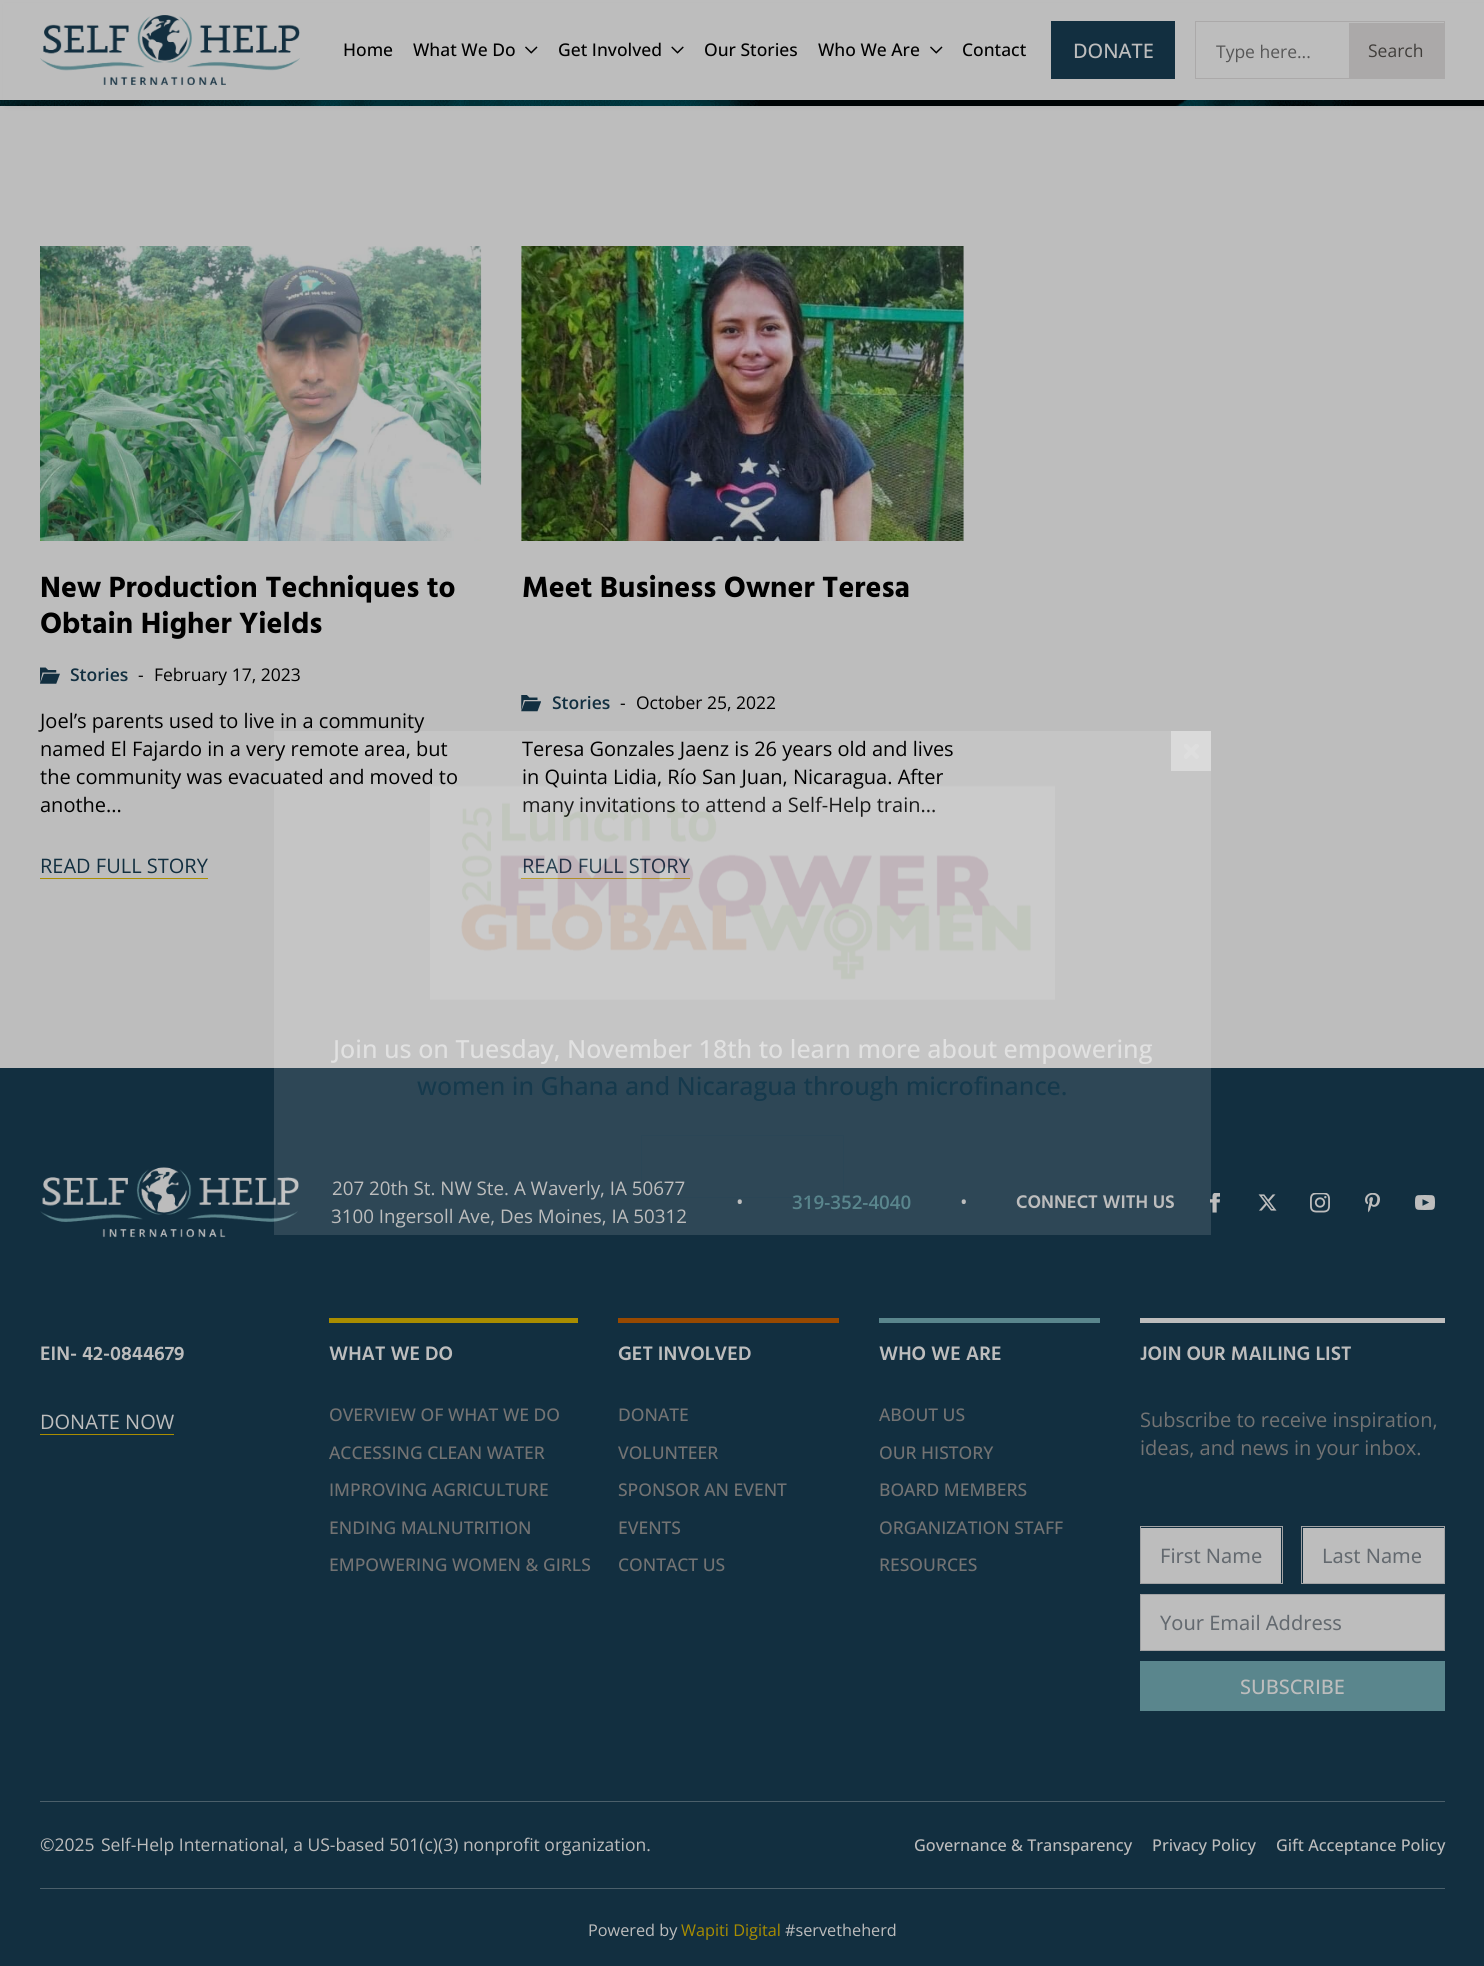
#include <cairo/cairo.h>
#include <math.h>
#include <stddef.h>


static void rounded_rect(cairo_t *cr, double x, double y, double w, double h, double r) {
  cairo_new_sub_path(cr);
  cairo_arc(cr, x + w - r, y + h - r, r, 0, M_PI / 2);
  cairo_arc(cr, x + r, y + h - r, r, M_PI / 2, M_PI);
  cairo_arc(cr, x + r, y + r, r, M_PI, 1.5 * M_PI);
  cairo_arc(cr, x + w - r, y + r, r, 1.5 * M_PI, 2 * M_PI);
  cairo_close_path(cr);
}

static void draw_shadow(cairo_t *cr, double x, double y, double w, double h, double r, double blur, double alpha) {
  cairo_push_group_with_content(cr, CAIRO_CONTENT_ALPHA);
  cairo_set_operator(cr, CAIRO_OPERATOR_SOURCE);
  for (int i = 15; i >= -15 && fmin(w, h) + blur * i / 3 > 0; i -= 2) {
    double e = blur * i / 6;
    cairo_set_source_rgba(cr, 0, 0, 0, alpha * erfc((i - 1) / 8.5) / 2);
    rounded_rect(cr, x - e, y - e, w + 2 * e, h + 2 * e, fmax(0, fmin(r + e + blur * .6, fmin(w, h) / 2 + e)));
    cairo_fill(cr);
  }
  cairo_pattern_t *soft = cairo_pop_group(cr);
  cairo_mask(cr, soft);
  cairo_pattern_destroy(soft);
}

static void draw_image(cairo_t *cr, const char *path, double x, double y, double w, double h) {
  cairo_surface_t *image = cairo_image_surface_create_from_png(path);
  cairo_save(cr);
  cairo_set_source_surface(cr, image, x, y);
  cairo_rectangle(cr, x, y, w, h);
  cairo_fill(cr);
  cairo_restore(cr);
  cairo_surface_destroy(image);
}

static void draw(cairo_t *cr) {
  cairo_set_source_rgb(cr, 189 / 255.0, 189 / 255.0, 189 / 255.0);
  cairo_paint(cr);
  draw_image(cr, "images/4.png", 0, 100, 1484, 6);
  cairo_set_source_rgb(cr, 0, 0, 0);
  draw_shadow(cr, 6, 6, 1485, 100, 0, 3, 0.08);
  cairo_set_source_rgb(cr, 189 / 255.0, 189 / 255.0, 189 / 255.0);
  cairo_rectangle(cr, 3, 3, 1481, 97);
  cairo_fill(cr);
  draw_image(cr, "images/1.png", 40, 15, 260, 70);
  draw_image(cr, "images/2.png", 525, 46, 13, 8);
  draw_image(cr, "images/3.png", 671, 46, 13, 8);
  draw_image(cr, "images/2.png", 930, 46, 13, 8);
  cairo_set_source_rgb(cr, 18 / 255.0, 47 / 255.0, 64 / 255.0);
  cairo_rectangle(cr, 1051, 21, 124, 58);
  cairo_fill(cr);
  cairo_rectangle(cr, 1195.5, 21.5, 249, 57);
  cairo_set_source_rgb(cr, 171 / 255.0, 169 / 255.0, 169 / 255.0);
  cairo_set_line_width(cr, 1);
  cairo_stroke(cr);
  cairo_rectangle(cr, 1349, 23, 95, 55);
  cairo_fill(cr);
  draw_image(cr, "images/5.png", 40, 246, 442, 295);
  draw_image(cr, "images/6.png", 40, 667, 20, 17);
  cairo_set_source_rgb(cr, 169 / 255.0, 141 / 255.0, 0);
  cairo_rectangle(cr, 40, 878, 168, 1);
  cairo_fill(cr);
  draw_image(cr, "images/7.png", 521, 246, 443, 295);
  draw_image(cr, "images/8.png", 521, 695, 20, 17);
  cairo_rectangle(cr, 521, 878, 169, 1);
  cairo_fill(cr);
  cairo_set_source_rgb(cr, 18 / 255.0, 47 / 255.0, 64 / 255.0);
  cairo_rectangle(cr, 0, 1068, 1484, 898);
  cairo_fill(cr);
  draw_image(cr, "images/11.png", 40, 1167, 259, 71);
  draw_image(cr, "images/12.png", 1210, 1193, 10, 20);
  cairo_set_source_rgba(cr, 1, 1, 1, 0.12);
  cairo_rectangle(cr, 274, 731, 937, 504);
  cairo_fill(cr);
  cairo_set_source_rgb(cr, 218 / 255.0, 218 / 255.0, 218 / 255.0);
  cairo_rectangle(cr, 1171, 731, 40, 40);
  cairo_fill(cr);
  draw_image(cr, "images/9.png", 1184, 744, 15, 15);
  draw_image(cr, "images/13.png", 1258, 1194, 19, 17);
  draw_image(cr, "images/14.png", 1310, 1193, 20, 20);
  draw_image(cr, "images/15.png", 1365, 1193, 15, 20);
  draw_image(cr, "images/16.png", 1415, 1195, 20, 15);
  cairo_set_source_rgb(cr, 169 / 255.0, 141 / 255.0, 0);
  cairo_rectangle(cr, 40, 1434, 134, 1);
  cairo_fill(cr);
  cairo_rectangle(cr, 329, 1318, 249, 5);
  cairo_fill(cr);
  cairo_set_source_rgb(cr, 151 / 255.0, 73 / 255.0, 1 / 255.0);
  cairo_rectangle(cr, 618, 1318, 221, 5);
  cairo_fill(cr);
  cairo_set_source_rgb(cr, 90 / 255.0, 134 / 255.0, 141 / 255.0);
  cairo_rectangle(cr, 879, 1318, 221, 5);
  cairo_fill(cr);
  cairo_set_source_rgb(cr, 189 / 255.0, 189 / 255.0, 189 / 255.0);
  cairo_rectangle(cr, 1140, 1318, 305, 5);
  cairo_fill(cr);
  cairo_rectangle(cr, 1141, 1528, 140, 55);
  cairo_fill(cr);
  cairo_rectangle(cr, 1140.5, 1526.5, 142, 57);
  cairo_set_source_rgb(cr, 161 / 255.0, 162 / 255.0, 164 / 255.0);
  cairo_stroke(cr);
  cairo_set_source_rgb(cr, 189 / 255.0, 189 / 255.0, 189 / 255.0);
  cairo_rectangle(cr, 1303, 1528, 141, 55);
  cairo_fill(cr);
  cairo_rectangle(cr, 1301.5, 1526.5, 143, 57);
  cairo_set_source_rgb(cr, 161 / 255.0, 162 / 255.0, 164 / 255.0);
  cairo_stroke(cr);
  cairo_set_source_rgb(cr, 189 / 255.0, 189 / 255.0, 189 / 255.0);
  cairo_rectangle(cr, 1140.5, 1594.5, 304, 56);
  cairo_fill_preserve(cr);
  cairo_set_source_rgb(cr, 161 / 255.0, 162 / 255.0, 164 / 255.0);
  cairo_stroke(cr);
  cairo_set_source_rgb(cr, 90 / 255.0, 134 / 255.0, 141 / 255.0);
  cairo_rectangle(cr, 1140, 1661, 305, 50);
  cairo_fill(cr);
  cairo_set_source_rgb(cr, 75 / 255.0, 95 / 255.0, 106 / 255.0);
  cairo_rectangle(cr, 40, 1801, 1405, 1);
  cairo_fill(cr);
  cairo_rectangle(cr, 40, 1888, 1405, 1);
  cairo_fill(cr);
  cairo_select_font_face(cr, "Open Sans Medium", CAIRO_FONT_SLANT_NORMAL, CAIRO_FONT_WEIGHT_NORMAL);
  cairo_set_font_size(cr, 17.5);
  cairo_set_source_rgb(cr, 0, 0, 0);
  cairo_move_to(cr, 343, 56);
  cairo_show_text(cr, "Home");
  cairo_move_to(cr, 413, 56);
  cairo_show_text(cr, "What We Do");
  cairo_move_to(cr, 558, 56);
  cairo_show_text(cr, "Get Involved");
  cairo_move_to(cr, 704, 56);
  cairo_show_text(cr, "Our Stories");
  cairo_move_to(cr, 818, 56);
  cairo_show_text(cr, "Who We Are");
  cairo_move_to(cr, 962, 56);
  cairo_show_text(cr, "Contact");
  cairo_set_font_size(cr, 20);
  cairo_set_source_rgb(cr, 189 / 255.0, 189 / 255.0, 189 / 255.0);
  cairo_move_to(cr, 1073, 58);
  cairo_show_text(cr, "DONATE");
  cairo_select_font_face(cr, "Open Sans", CAIRO_FONT_SLANT_NORMAL, CAIRO_FONT_WEIGHT_NORMAL);
  cairo_set_font_size(cr, 17.5);
  cairo_set_source_rgb(cr, 87 / 255.0, 87 / 255.0, 87 / 255.0);
  cairo_move_to(cr, 1216, 58);
  cairo_show_text(cr, "Type here...");
  cairo_set_source_rgb(cr, 64 / 255.0, 61 / 255.0, 58 / 255.0);
  cairo_move_to(cr, 1368, 57);
  cairo_show_text(cr, "Search");
  cairo_select_font_face(cr, "Hind Madurai", CAIRO_FONT_SLANT_NORMAL, CAIRO_FONT_WEIGHT_BOLD);
  cairo_set_font_size(cr, 30);
  cairo_set_source_rgb(cr, 0, 0, 0);
  cairo_move_to(cr, 40, 597);
  cairo_show_text(cr, "New Production Techniques to");
  cairo_move_to(cr, 40, 633);
  cairo_show_text(cr, "Obtain Higher Yields");
  cairo_select_font_face(cr, "Open Sans SemiBold", CAIRO_FONT_SLANT_NORMAL, CAIRO_FONT_WEIGHT_NORMAL);
  cairo_set_font_size(cr, 17.5);
  cairo_set_source_rgb(cr, 18 / 255.0, 47 / 255.0, 64 / 255.0);
  cairo_move_to(cr, 70, 681);
  cairo_show_text(cr, "Stories");
  cairo_select_font_face(cr, "Open Sans", CAIRO_FONT_SLANT_NORMAL, CAIRO_FONT_WEIGHT_NORMAL);
  cairo_set_source_rgb(cr, 0, 0, 0);
  cairo_move_to(cr, 138, 681);
  cairo_show_text(cr, "-");
  cairo_move_to(cr, 154, 681);
  cairo_show_text(cr, "February 17, 2023");
  cairo_set_font_size(cr, 20);
  cairo_move_to(cr, 40, 728);
  cairo_show_text(cr, "Joel’s parents used to live in a community");
  cairo_move_to(cr, 40, 756);
  cairo_show_text(cr, "named El Fajardo in a very remote area, but");
  cairo_move_to(cr, 40, 784);
  cairo_show_text(cr, "the community was evacuated and moved to");
  cairo_move_to(cr, 40, 812);
  cairo_show_text(cr, "anothe...");
  cairo_set_source_rgb(cr, 18 / 255.0, 47 / 255.0, 64 / 255.0);
  cairo_move_to(cr, 40, 873);
  cairo_show_text(cr, "READ FULL STORY");
  cairo_select_font_face(cr, "Hind Madurai", CAIRO_FONT_SLANT_NORMAL, CAIRO_FONT_WEIGHT_BOLD);
  cairo_set_font_size(cr, 30);
  cairo_set_source_rgb(cr, 0, 0, 0);
  cairo_move_to(cr, 522, 597);
  cairo_show_text(cr, "Meet Business Owner Teresa");
  cairo_select_font_face(cr, "Open Sans SemiBold", CAIRO_FONT_SLANT_NORMAL, CAIRO_FONT_WEIGHT_NORMAL);
  cairo_set_font_size(cr, 17.5);
  cairo_set_source_rgb(cr, 18 / 255.0, 47 / 255.0, 64 / 255.0);
  cairo_move_to(cr, 552, 709);
  cairo_show_text(cr, "Stories");
  cairo_select_font_face(cr, "Open Sans", CAIRO_FONT_SLANT_NORMAL, CAIRO_FONT_WEIGHT_NORMAL);
  cairo_set_source_rgb(cr, 0, 0, 0);
  cairo_move_to(cr, 620, 709);
  cairo_show_text(cr, "-");
  cairo_move_to(cr, 636, 709);
  cairo_show_text(cr, "October 25, 2022");
  cairo_set_font_size(cr, 20);
  cairo_move_to(cr, 522, 756);
  cairo_show_text(cr, "Teresa Gonzales Jaenz is 26 years old and lives");
  cairo_move_to(cr, 522, 784);
  cairo_show_text(cr, "in Quinta Lidia, Río San Juan, Nicaragua. After");
  cairo_move_to(cr, 522, 812);
  cairo_show_text(cr, "many invitations to attend a Self-Help train...");
  cairo_set_source_rgb(cr, 18 / 255.0, 47 / 255.0, 64 / 255.0);
  cairo_move_to(cr, 522, 873);
  cairo_show_text(cr, "READ FULL STORY");
  draw_image(cr, "images/10.png", 430, 785, 625, 215);
  cairo_select_font_face(cr, "Open Sans Medium", CAIRO_FONT_SLANT_NORMAL, CAIRO_FONT_WEIGHT_NORMAL);
  cairo_set_font_size(cr, 25);
  cairo_set_source_rgb(cr, 225 / 255.0, 225 / 255.0, 225 / 255.0);
  cairo_move_to(cr, 333, 1058);
  cairo_show_text(cr, "Join us on Tuesday, November 18th to learn more about empowering");
  cairo_set_source_rgb(cr, 21 / 255.0, 57 / 255.0, 76 / 255.0);
  cairo_move_to(cr, 417, 1095);
  cairo_show_text(cr, "women in Ghana and Nicaragua through microfinance.");
  cairo_select_font_face(cr, "Open Sans", CAIRO_FONT_SLANT_NORMAL, CAIRO_FONT_WEIGHT_NORMAL);
  cairo_set_font_size(cr, 18.75);
  cairo_set_source_rgb(cr, 189 / 255.0, 189 / 255.0, 189 / 255.0);
  cairo_move_to(cr, 332, 1195);
  cairo_show_text(cr, "207 20th St. NW Ste. A Waverly, IA 50677");
  cairo_move_to(cr, 331, 1223);
  cairo_show_text(cr, "3100 Ingersoll Ave, Des Moines, IA 50312");
  cairo_set_font_size(cr, 20);
  cairo_move_to(cr, 736, 1209);
  cairo_show_text(cr, "•");
  cairo_select_font_face(cr, "Open Sans SemiBold", CAIRO_FONT_SLANT_NORMAL, CAIRO_FONT_WEIGHT_NORMAL);
  cairo_set_font_size(cr, 18.75);
  cairo_set_source_rgb(cr, 90 / 255.0, 134 / 255.0, 141 / 255.0);
  cairo_move_to(cr, 792, 1209);
  cairo_show_text(cr, "319-352-4040");
  cairo_rectangle(cr, 641.5, 1135.5, 202, 62);
  cairo_set_source_rgba(cr, 24 / 255.0, 64 / 255.0, 86 / 255.0, 0.12);
  cairo_stroke(cr);
  cairo_select_font_face(cr, "Open Sans", CAIRO_FONT_SLANT_NORMAL, CAIRO_FONT_WEIGHT_NORMAL);
  cairo_set_font_size(cr, 20);
  cairo_set_source_rgb(cr, 189 / 255.0, 189 / 255.0, 189 / 255.0);
  cairo_move_to(cr, 960, 1209);
  cairo_show_text(cr, "•");
  cairo_select_font_face(cr, "Hind Madurai SemiBold", CAIRO_FONT_SLANT_NORMAL, CAIRO_FONT_WEIGHT_NORMAL);
  cairo_set_font_size(cr, 18.75);
  cairo_move_to(cr, 1016, 1208);
  cairo_show_text(cr, "CONNECT WITH US");
  cairo_set_font_size(cr, 20);
  cairo_move_to(cr, 40, 1360);
  cairo_show_text(cr, "EIN- 42-0844679");
  cairo_select_font_face(cr, "Open Sans", CAIRO_FONT_SLANT_NORMAL, CAIRO_FONT_WEIGHT_NORMAL);
  cairo_move_to(cr, 40, 1429);
  cairo_show_text(cr, "DONATE NOW");
  cairo_select_font_face(cr, "Hind Madurai SemiBold", CAIRO_FONT_SLANT_NORMAL, CAIRO_FONT_WEIGHT_NORMAL);
  cairo_move_to(cr, 329, 1360);
  cairo_show_text(cr, "WHAT WE DO");
  cairo_select_font_face(cr, "Open Sans Medium", CAIRO_FONT_SLANT_NORMAL, CAIRO_FONT_WEIGHT_NORMAL);
  cairo_set_font_size(cr, 17.5);
  cairo_set_source_rgb(cr, 115 / 255.0, 115 / 255.0, 115 / 255.0);
  cairo_move_to(cr, 329, 1421);
  cairo_show_text(cr, "OVERVIEW OF WHAT WE DO");
  cairo_move_to(cr, 329, 1459);
  cairo_show_text(cr, "ACCESSING CLEAN WATER");
  cairo_move_to(cr, 329, 1496);
  cairo_show_text(cr, "IMPROVING AGRICULTURE");
  cairo_move_to(cr, 329, 1534);
  cairo_show_text(cr, "ENDING MALNUTRITION");
  cairo_move_to(cr, 329, 1571);
  cairo_show_text(cr, "EMPOWERING WOMEN & GIRLS");
  cairo_select_font_face(cr, "Hind Madurai SemiBold", CAIRO_FONT_SLANT_NORMAL, CAIRO_FONT_WEIGHT_NORMAL);
  cairo_set_font_size(cr, 20);
  cairo_set_source_rgb(cr, 189 / 255.0, 189 / 255.0, 189 / 255.0);
  cairo_move_to(cr, 618, 1360);
  cairo_show_text(cr, "GET INVOLVED");
  cairo_select_font_face(cr, "Open Sans Medium", CAIRO_FONT_SLANT_NORMAL, CAIRO_FONT_WEIGHT_NORMAL);
  cairo_set_font_size(cr, 17.5);
  cairo_set_source_rgb(cr, 115 / 255.0, 115 / 255.0, 115 / 255.0);
  cairo_move_to(cr, 618, 1421);
  cairo_show_text(cr, "DONATE");
  cairo_move_to(cr, 618, 1459);
  cairo_show_text(cr, "VOLUNTEER");
  cairo_move_to(cr, 618, 1496);
  cairo_show_text(cr, "SPONSOR AN EVENT");
  cairo_move_to(cr, 618, 1534);
  cairo_show_text(cr, "EVENTS");
  cairo_move_to(cr, 618, 1571);
  cairo_show_text(cr, "CONTACT US");
  cairo_select_font_face(cr, "Hind Madurai SemiBold", CAIRO_FONT_SLANT_NORMAL, CAIRO_FONT_WEIGHT_NORMAL);
  cairo_set_font_size(cr, 20);
  cairo_set_source_rgb(cr, 189 / 255.0, 189 / 255.0, 189 / 255.0);
  cairo_move_to(cr, 879, 1360);
  cairo_show_text(cr, "WHO WE ARE");
  cairo_select_font_face(cr, "Open Sans Medium", CAIRO_FONT_SLANT_NORMAL, CAIRO_FONT_WEIGHT_NORMAL);
  cairo_set_font_size(cr, 17.5);
  cairo_set_source_rgb(cr, 115 / 255.0, 115 / 255.0, 115 / 255.0);
  cairo_move_to(cr, 879, 1421);
  cairo_show_text(cr, "ABOUT US");
  cairo_move_to(cr, 879, 1459);
  cairo_show_text(cr, "OUR HISTORY");
  cairo_move_to(cr, 879, 1496);
  cairo_show_text(cr, "BOARD MEMBERS");
  cairo_move_to(cr, 879, 1534);
  cairo_show_text(cr, "ORGANIZATION STAFF");
  cairo_move_to(cr, 879, 1571);
  cairo_show_text(cr, "RESOURCES");
  cairo_select_font_face(cr, "Hind Madurai SemiBold", CAIRO_FONT_SLANT_NORMAL, CAIRO_FONT_WEIGHT_NORMAL);
  cairo_set_font_size(cr, 20);
  cairo_set_source_rgb(cr, 189 / 255.0, 189 / 255.0, 189 / 255.0);
  cairo_move_to(cr, 1140, 1360);
  cairo_show_text(cr, "JOIN OUR MAILING LIST");
  cairo_select_font_face(cr, "Open Sans", CAIRO_FONT_SLANT_NORMAL, CAIRO_FONT_WEIGHT_NORMAL);
  cairo_set_source_rgb(cr, 115 / 255.0, 115 / 255.0, 115 / 255.0);
  cairo_move_to(cr, 1140, 1427);
  cairo_show_text(cr, "Subscribe to receive inspiration,");
  cairo_move_to(cr, 1140, 1455);
  cairo_show_text(cr, "ideas, and news in your inbox.");
  cairo_select_font_face(cr, "Noto Sans", CAIRO_FONT_SLANT_NORMAL, CAIRO_FONT_WEIGHT_NORMAL);
  cairo_set_source_rgb(cr, 99 / 255.0, 105 / 255.0, 111 / 255.0);
  cairo_move_to(cr, 1160, 1563);
  cairo_show_text(cr, "First Name");
  cairo_move_to(cr, 1322, 1563);
  cairo_show_text(cr, "Last Name");
  cairo_move_to(cr, 1160, 1630);
  cairo_show_text(cr, "Your Email Address");
  cairo_select_font_face(cr, "Open Sans Medium", CAIRO_FONT_SLANT_NORMAL, CAIRO_FONT_WEIGHT_NORMAL);
  cairo_set_source_rgb(cr, 189 / 255.0, 189 / 255.0, 189 / 255.0);
  cairo_move_to(cr, 1240, 1694);
  cairo_show_text(cr, "SUBSCRIBE");
  cairo_select_font_face(cr, "Open Sans", CAIRO_FONT_SLANT_NORMAL, CAIRO_FONT_WEIGHT_NORMAL);
  cairo_set_font_size(cr, 17.5);
  cairo_move_to(cr, 40, 1851);
  cairo_show_text(cr, "©2025");
  cairo_move_to(cr, 101, 1851);
  cairo_show_text(cr, "Self-Help International, a US-based 501(c)(3) nonprofit organization.");
  cairo_select_font_face(cr, "Open Sans Medium", CAIRO_FONT_SLANT_NORMAL, CAIRO_FONT_WEIGHT_NORMAL);
  cairo_set_font_size(cr, 16.25);
  cairo_move_to(cr, 914, 1851);
  cairo_show_text(cr, "Governance & Transparency");
  cairo_move_to(cr, 1152, 1851);
  cairo_show_text(cr, "Privacy Policy");
  cairo_move_to(cr, 1276, 1851);
  cairo_show_text(cr, "Gift Acceptance Policy");
  cairo_select_font_face(cr, "Open Sans", CAIRO_FONT_SLANT_NORMAL, CAIRO_FONT_WEIGHT_NORMAL);
  cairo_move_to(cr, 588, 1936);
  cairo_show_text(cr, "Powered by");
  cairo_set_source_rgb(cr, 169 / 255.0, 141 / 255.0, 0);
  cairo_move_to(cr, 681, 1936);
  cairo_show_text(cr, "Wapiti Digital");
  cairo_set_source_rgb(cr, 189 / 255.0, 189 / 255.0, 189 / 255.0);
  cairo_move_to(cr, 785, 1936);
  cairo_show_text(cr, "#servetheherd");
}

int main(void) {
  cairo_surface_t *surface = cairo_image_surface_create(CAIRO_FORMAT_RGB24, 1484, 1966);
  cairo_t *cr = cairo_create(surface);
  cairo_font_options_t *options = cairo_font_options_create();
  cairo_font_options_set_hint_metrics(options, CAIRO_HINT_METRICS_OFF);
  cairo_font_options_set_hint_style(options, CAIRO_HINT_STYLE_NONE);
  cairo_set_font_options(cr, options);
  cairo_set_miter_limit(cr, 4);
  draw(cr);
  cairo_surface_write_to_png(surface, "out.png");
  cairo_font_options_destroy(options);
  cairo_destroy(cr);
  cairo_surface_destroy(surface);
  return 0;
}
